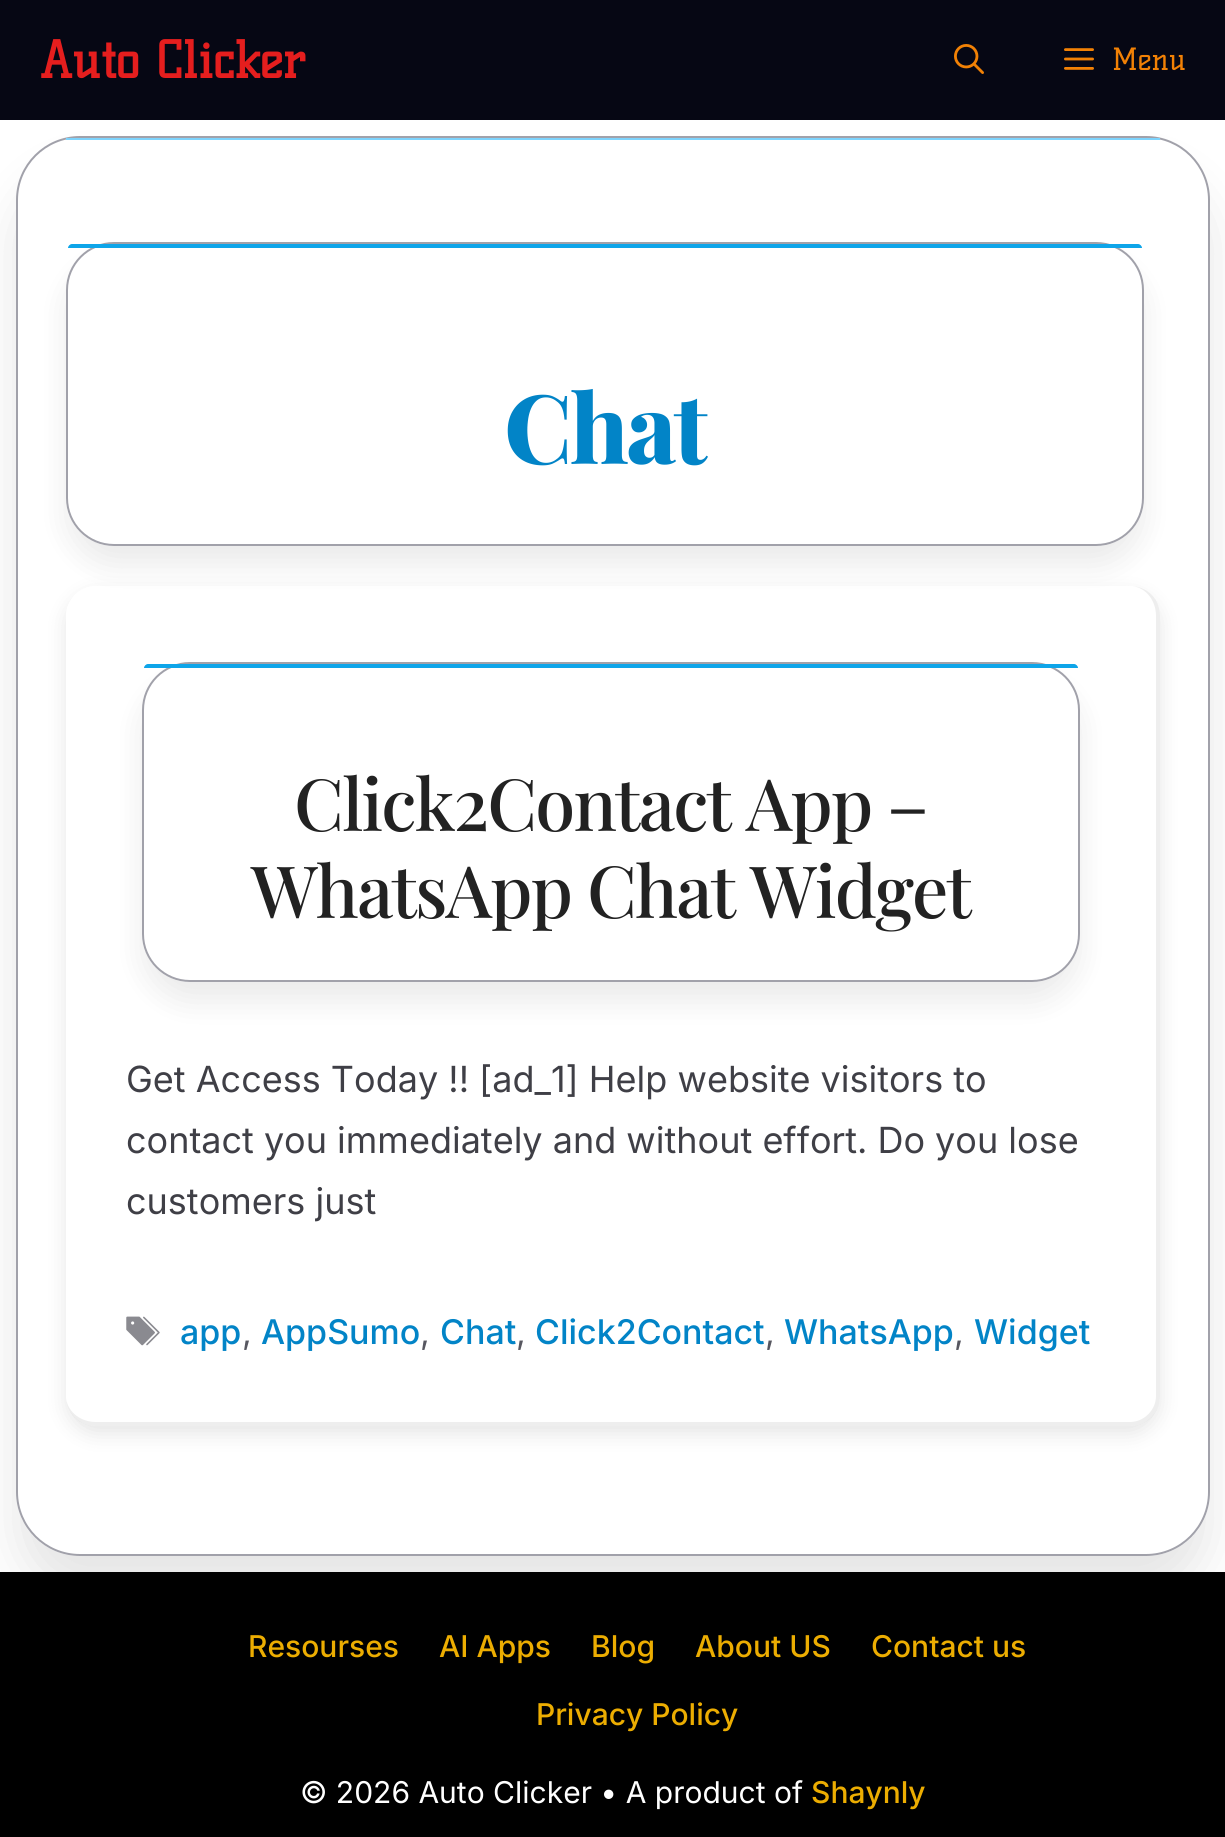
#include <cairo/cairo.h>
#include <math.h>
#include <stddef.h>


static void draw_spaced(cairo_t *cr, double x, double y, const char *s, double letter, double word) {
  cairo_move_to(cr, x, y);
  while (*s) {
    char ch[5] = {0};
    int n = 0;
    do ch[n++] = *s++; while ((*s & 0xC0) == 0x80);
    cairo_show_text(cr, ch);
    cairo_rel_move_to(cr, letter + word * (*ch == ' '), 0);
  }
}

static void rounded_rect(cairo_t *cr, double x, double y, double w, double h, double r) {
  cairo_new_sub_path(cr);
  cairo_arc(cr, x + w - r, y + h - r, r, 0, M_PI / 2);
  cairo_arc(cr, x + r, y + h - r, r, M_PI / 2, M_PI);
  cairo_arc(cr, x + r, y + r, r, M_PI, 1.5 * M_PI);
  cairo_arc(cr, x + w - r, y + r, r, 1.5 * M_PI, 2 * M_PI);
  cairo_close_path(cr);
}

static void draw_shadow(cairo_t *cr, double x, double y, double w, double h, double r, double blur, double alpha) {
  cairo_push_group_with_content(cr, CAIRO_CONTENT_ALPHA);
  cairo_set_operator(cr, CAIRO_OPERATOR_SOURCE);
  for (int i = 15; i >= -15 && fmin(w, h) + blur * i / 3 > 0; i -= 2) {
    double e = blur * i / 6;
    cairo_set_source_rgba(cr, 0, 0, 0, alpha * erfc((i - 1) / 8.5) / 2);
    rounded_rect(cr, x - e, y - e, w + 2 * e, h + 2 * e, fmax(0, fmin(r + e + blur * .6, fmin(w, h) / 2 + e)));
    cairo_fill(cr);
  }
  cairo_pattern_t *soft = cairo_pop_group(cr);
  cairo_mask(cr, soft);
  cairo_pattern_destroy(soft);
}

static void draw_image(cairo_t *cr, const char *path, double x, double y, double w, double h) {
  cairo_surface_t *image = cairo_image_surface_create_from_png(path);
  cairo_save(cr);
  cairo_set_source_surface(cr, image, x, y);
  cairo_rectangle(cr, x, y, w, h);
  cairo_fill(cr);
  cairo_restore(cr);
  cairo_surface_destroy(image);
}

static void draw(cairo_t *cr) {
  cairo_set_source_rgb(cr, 1, 1, 1);
  cairo_paint(cr);
  cairo_set_source_rgb(cr, 6 / 255.0, 7 / 255.0, 20 / 255.0);
  cairo_rectangle(cr, 0, 0, 1225, 120);
  cairo_fill(cr);
  draw_image(cr, "images/1.png", 954, 44, 30, 30);
  draw_image(cr, "images/2.png", 1064, 48, 30, 22);
  cairo_set_source_rgb(cr, 0, 0, 0);
  cairo_rectangle(cr, 0, 1572, 1225, 265);
  cairo_fill(cr);
  cairo_save(cr);
  cairo_set_fill_rule(cr, CAIRO_FILL_RULE_EVEN_ODD);
  cairo_new_path(cr);
  cairo_move_to(cr, 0, 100);
  cairo_line_to(cr, 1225, 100);
  cairo_line_to(cr, 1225, 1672);
  cairo_line_to(cr, 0, 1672);
  cairo_close_path(cr);
  cairo_move_to(cr, 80, 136);
  cairo_line_to(cr, 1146, 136);
  cairo_curve_to(cr, 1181.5, 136, 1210, 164.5, 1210, 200);
  cairo_line_to(cr, 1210, 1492);
  cairo_curve_to(cr, 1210, 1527.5, 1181.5, 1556, 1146, 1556);
  cairo_line_to(cr, 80, 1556);
  cairo_curve_to(cr, 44.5, 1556, 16, 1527.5, 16, 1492);
  cairo_line_to(cr, 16, 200);
  cairo_curve_to(cr, 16, 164.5, 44.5, 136, 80, 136);
  cairo_close_path(cr);
  cairo_clip(cr);
  cairo_set_source_rgb(cr, 0, 0, 0);
  draw_shadow(cr, 16, 176, 1194, 1420, 64, 25, 0.1);
  cairo_restore(cr);
  rounded_rect(cr, 17, 137, 1192, 1418, 63);
  cairo_set_source_rgb(cr, 161 / 255.0, 161 / 255.0, 170 / 255.0);
  cairo_stroke(cr);
  cairo_set_source_rgb(cr, 125 / 255.0, 211 / 255.0, 252 / 255.0);
  cairo_rectangle(cr, 66, 138, 1094, 2);
  cairo_fill(cr);
  cairo_save(cr);
  cairo_set_fill_rule(cr, CAIRO_FILL_RULE_EVEN_ODD);
  cairo_new_path(cr);
  cairo_move_to(cr, 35, 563);
  cairo_line_to(cr, 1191, 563);
  cairo_line_to(cr, 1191, 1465);
  cairo_line_to(cr, 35, 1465);
  cairo_close_path(cr);
  cairo_move_to(cr, 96, 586);
  cairo_line_to(cr, 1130, 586);
  cairo_curve_to(cr, 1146.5, 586, 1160, 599.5, 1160, 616);
  cairo_line_to(cr, 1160, 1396);
  cairo_curve_to(cr, 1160, 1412.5, 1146.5, 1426, 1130, 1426);
  cairo_line_to(cr, 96, 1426);
  cairo_curve_to(cr, 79.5, 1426, 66, 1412.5, 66, 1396);
  cairo_line_to(cr, 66, 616);
  cairo_curve_to(cr, 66, 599.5, 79.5, 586, 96, 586);
  cairo_close_path(cr);
  cairo_clip(cr);
  cairo_set_source_rgb(cr, 0, 0, 0);
  draw_shadow(cr, 66, 594, 1094, 840, 30, 10, 0.1);
  cairo_restore(cr);
  cairo_set_source_rgba(cr, 0, 0, 0, 0.07);
  cairo_set_fill_rule(cr, CAIRO_FILL_RULE_EVEN_ODD);
  cairo_new_path(cr);
  cairo_move_to(cr, 96, 586);
  cairo_line_to(cr, 1130, 586);
  cairo_curve_to(cr, 1147, 586, 1160, 599, 1160, 616);
  cairo_line_to(cr, 1160, 1396);
  cairo_curve_to(cr, 1160, 1413, 1147, 1426, 1130, 1426);
  cairo_line_to(cr, 96, 1426);
  cairo_curve_to(cr, 79, 1426, 66, 1413, 66, 1396);
  cairo_line_to(cr, 66, 616);
  cairo_curve_to(cr, 66, 599, 79, 586, 96, 586);
  cairo_close_path(cr);
  cairo_move_to(cr, 96, 586);
  cairo_line_to(cr, 1130, 586);
  cairo_curve_to(cr, 1144, 586, 1156, 599, 1156, 616);
  cairo_line_to(cr, 1156, 1396);
  cairo_curve_to(cr, 1156, 1410, 1144, 1422, 1130, 1422);
  cairo_line_to(cr, 96, 1422);
  cairo_curve_to(cr, 79, 1422, 66, 1410, 66, 1396);
  cairo_line_to(cr, 66, 616);
  cairo_curve_to(cr, 66, 599, 79, 586, 96, 586);
  cairo_close_path(cr);
  cairo_fill(cr);
  cairo_save(cr);
  cairo_new_path(cr);
  cairo_move_to(cr, 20, 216);
  cairo_line_to(cr, 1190, 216);
  cairo_line_to(cr, 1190, 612);
  cairo_line_to(cr, 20, 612);
  cairo_close_path(cr);
  cairo_move_to(cr, 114, 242);
  cairo_line_to(cr, 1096, 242);
  cairo_curve_to(cr, 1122.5, 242, 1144, 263.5, 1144, 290);
  cairo_line_to(cr, 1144, 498);
  cairo_curve_to(cr, 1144, 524.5, 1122.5, 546, 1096, 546);
  cairo_line_to(cr, 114, 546);
  cairo_curve_to(cr, 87.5, 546, 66, 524.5, 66, 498);
  cairo_line_to(cr, 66, 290);
  cairo_curve_to(cr, 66, 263.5, 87.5, 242, 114, 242);
  cairo_close_path(cr);
  cairo_clip(cr);
  cairo_set_source_rgb(cr, 0, 0, 0);
  draw_shadow(cr, 66, 262, 1078, 304, 48, 15, 0.08);
  cairo_restore(cr);
  rounded_rect(cr, 67, 243, 1076, 302, 47);
  cairo_set_source_rgb(cr, 161 / 255.0, 161 / 255.0, 170 / 255.0);
  cairo_stroke(cr);
  cairo_set_source_rgb(cr, 14 / 255.0, 165 / 255.0, 233 / 255.0);
  cairo_new_path(cr);
  cairo_move_to(cr, 72, 244);
  cairo_line_to(cr, 1138, 244);
  cairo_curve_to(cr, 1140, 244, 1142, 246, 1142, 248);
  cairo_line_to(cr, 68, 248);
  cairo_curve_to(cr, 68, 246, 70, 244, 72, 244);
  cairo_close_path(cr);
  cairo_fill(cr);
  cairo_save(cr);
  cairo_new_path(cr);
  cairo_move_to(cr, 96, 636);
  cairo_line_to(cr, 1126, 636);
  cairo_line_to(cr, 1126, 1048);
  cairo_line_to(cr, 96, 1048);
  cairo_close_path(cr);
  cairo_move_to(cr, 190, 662);
  cairo_line_to(cr, 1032, 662);
  cairo_curve_to(cr, 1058.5, 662, 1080, 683.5, 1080, 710);
  cairo_line_to(cr, 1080, 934);
  cairo_curve_to(cr, 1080, 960.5, 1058.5, 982, 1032, 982);
  cairo_line_to(cr, 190, 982);
  cairo_curve_to(cr, 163.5, 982, 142, 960.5, 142, 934);
  cairo_line_to(cr, 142, 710);
  cairo_curve_to(cr, 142, 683.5, 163.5, 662, 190, 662);
  cairo_close_path(cr);
  cairo_clip(cr);
  cairo_set_source_rgb(cr, 0, 0, 0);
  draw_shadow(cr, 142, 682, 938, 320, 48, 15, 0.08);
  cairo_restore(cr);
  rounded_rect(cr, 143, 663, 936, 318, 47);
  cairo_set_source_rgb(cr, 161 / 255.0, 161 / 255.0, 170 / 255.0);
  cairo_stroke(cr);
  cairo_set_source_rgb(cr, 14 / 255.0, 165 / 255.0, 233 / 255.0);
  cairo_new_path(cr);
  cairo_move_to(cr, 148, 664);
  cairo_line_to(cr, 1074, 664);
  cairo_curve_to(cr, 1076, 664, 1078, 666, 1078, 668);
  cairo_line_to(cr, 144, 668);
  cairo_curve_to(cr, 144, 666, 146, 664, 148, 664);
  cairo_close_path(cr);
  cairo_fill(cr);
  draw_image(cr, "images/3.png", 126, 1316, 34, 30);
  cairo_select_font_face(cr, "Kelly Slab", CAIRO_FONT_SLANT_NORMAL, CAIRO_FONT_WEIGHT_BOLD);
  cairo_set_font_size(cr, 50);
  cairo_set_source_rgb(cr, 229 / 255.0, 30 / 255.0, 30 / 255.0);
  cairo_move_to(cr, 40, 78);
  cairo_show_text(cr, "Auto Clicker");
  cairo_select_font_face(cr, "Kelly Slab", CAIRO_FONT_SLANT_NORMAL, CAIRO_FONT_WEIGHT_NORMAL);
  cairo_set_font_size(cr, 30);
  cairo_set_source_rgb(cr, 242 / 255.0, 129 / 255.0, 5 / 255.0);
  cairo_move_to(cr, 1112, 70);
  cairo_show_text(cr, "Menu");
  cairo_select_font_face(cr, "Playfair Display ExtraBold", CAIRO_FONT_SLANT_NORMAL, CAIRO_FONT_WEIGHT_NORMAL);
  cairo_set_font_size(cr, 96);
  cairo_set_source_rgb(cr, 2 / 255.0, 132 / 255.0, 199 / 255.0);
  draw_spaced(cr, 504, 464, "Chat", -2.5, 0);
  cairo_select_font_face(cr, "Playfair Display Medium", CAIRO_FONT_SLANT_NORMAL, CAIRO_FONT_WEIGHT_NORMAL);
  cairo_set_font_size(cr, 72);
  cairo_set_source_rgb(cr, 34 / 255.0, 34 / 255.0, 34 / 255.0);
  draw_spaced(cr, 294, 831, "Click2Contact App –", -1.8, 0);
  draw_spaced(cr, 251, 918, "WhatsApp Chat Widget", -1.8, 0);
  cairo_select_font_face(cr, "Inter", CAIRO_FONT_SLANT_NORMAL, CAIRO_FONT_WEIGHT_NORMAL);
  cairo_set_font_size(cr, 36);
  cairo_set_source_rgb(cr, 63 / 255.0, 63 / 255.0, 70 / 255.0);
  cairo_move_to(cr, 126, 1092);
  cairo_show_text(cr, "Get Access Today !! [ad_1] Help website visitors to");
  cairo_move_to(cr, 126, 1153);
  cairo_show_text(cr, "contact you immediately and without effort. Do you lose");
  cairo_move_to(cr, 126, 1214);
  cairo_show_text(cr, "customers just");
  cairo_select_font_face(cr, "Inter Medium", CAIRO_FONT_SLANT_NORMAL, CAIRO_FONT_WEIGHT_NORMAL);
  cairo_set_font_size(cr, 34);
  cairo_set_source_rgb(cr, 2 / 255.0, 132 / 255.0, 199 / 255.0);
  cairo_move_to(cr, 180, 1344);
  cairo_show_text(cr, "app");
  cairo_select_font_face(cr, "Inter", CAIRO_FONT_SLANT_NORMAL, CAIRO_FONT_WEIGHT_NORMAL);
  cairo_set_source_rgb(cr, 87 / 255.0, 87 / 255.0, 96 / 255.0);
  cairo_move_to(cr, 242, 1344);
  cairo_show_text(cr, ",");
  cairo_select_font_face(cr, "Inter Medium", CAIRO_FONT_SLANT_NORMAL, CAIRO_FONT_WEIGHT_NORMAL);
  cairo_set_source_rgb(cr, 2 / 255.0, 132 / 255.0, 199 / 255.0);
  cairo_move_to(cr, 261, 1344);
  cairo_show_text(cr, "AppSumo");
  cairo_select_font_face(cr, "Inter", CAIRO_FONT_SLANT_NORMAL, CAIRO_FONT_WEIGHT_NORMAL);
  cairo_set_source_rgb(cr, 87 / 255.0, 87 / 255.0, 96 / 255.0);
  cairo_move_to(cr, 420, 1344);
  cairo_show_text(cr, ",");
  cairo_select_font_face(cr, "Inter Medium", CAIRO_FONT_SLANT_NORMAL, CAIRO_FONT_WEIGHT_NORMAL);
  cairo_set_source_rgb(cr, 2 / 255.0, 132 / 255.0, 199 / 255.0);
  cairo_move_to(cr, 440, 1344);
  cairo_show_text(cr, "Chat");
  cairo_select_font_face(cr, "Inter", CAIRO_FONT_SLANT_NORMAL, CAIRO_FONT_WEIGHT_NORMAL);
  cairo_set_source_rgb(cr, 87 / 255.0, 87 / 255.0, 96 / 255.0);
  cairo_move_to(cr, 516, 1344);
  cairo_show_text(cr, ",");
  cairo_select_font_face(cr, "Inter Medium", CAIRO_FONT_SLANT_NORMAL, CAIRO_FONT_WEIGHT_NORMAL);
  cairo_set_source_rgb(cr, 2 / 255.0, 132 / 255.0, 199 / 255.0);
  cairo_move_to(cr, 535, 1344);
  cairo_show_text(cr, "Click2Contact");
  cairo_select_font_face(cr, "Inter", CAIRO_FONT_SLANT_NORMAL, CAIRO_FONT_WEIGHT_NORMAL);
  cairo_set_source_rgb(cr, 87 / 255.0, 87 / 255.0, 96 / 255.0);
  cairo_move_to(cr, 765, 1344);
  cairo_show_text(cr, ",");
  cairo_select_font_face(cr, "Inter Medium", CAIRO_FONT_SLANT_NORMAL, CAIRO_FONT_WEIGHT_NORMAL);
  cairo_set_source_rgb(cr, 2 / 255.0, 132 / 255.0, 199 / 255.0);
  cairo_move_to(cr, 784, 1344);
  cairo_show_text(cr, "WhatsApp");
  cairo_select_font_face(cr, "Inter", CAIRO_FONT_SLANT_NORMAL, CAIRO_FONT_WEIGHT_NORMAL);
  cairo_set_source_rgb(cr, 87 / 255.0, 87 / 255.0, 96 / 255.0);
  cairo_move_to(cr, 954, 1344);
  cairo_show_text(cr, ",");
  cairo_select_font_face(cr, "Inter Medium", CAIRO_FONT_SLANT_NORMAL, CAIRO_FONT_WEIGHT_NORMAL);
  cairo_set_source_rgb(cr, 2 / 255.0, 132 / 255.0, 199 / 255.0);
  cairo_move_to(cr, 974, 1344);
  cairo_show_text(cr, "Widget");
  cairo_set_font_size(cr, 30);
  cairo_set_source_rgb(cr, 236 / 255.0, 173 / 255.0, 1 / 255.0);
  cairo_move_to(cr, 248, 1657);
  cairo_show_text(cr, "Resourses");
  cairo_move_to(cr, 439, 1657);
  cairo_show_text(cr, "AI Apps");
  cairo_move_to(cr, 591, 1657);
  cairo_show_text(cr, "Blog");
  cairo_move_to(cr, 695, 1657);
  cairo_show_text(cr, "About US");
  cairo_move_to(cr, 871, 1657);
  cairo_show_text(cr, "Contact us");
  cairo_move_to(cr, 536, 1725);
  cairo_show_text(cr, "Privacy Policy");
  cairo_select_font_face(cr, "Inter", CAIRO_FONT_SLANT_NORMAL, CAIRO_FONT_WEIGHT_NORMAL);
  cairo_set_source_rgb(cr, 1, 1, 1);
  cairo_move_to(cr, 300, 1803);
  cairo_show_text(cr, "© 2026 Auto Clicker • A product of");
  cairo_select_font_face(cr, "Inter Medium", CAIRO_FONT_SLANT_NORMAL, CAIRO_FONT_WEIGHT_NORMAL);
  cairo_set_source_rgb(cr, 236 / 255.0, 173 / 255.0, 1 / 255.0);
  cairo_move_to(cr, 811, 1803);
  cairo_show_text(cr, "Shaynly");
}

int main(void) {
  cairo_surface_t *surface = cairo_image_surface_create(CAIRO_FORMAT_RGB24, 1225, 1837);
  cairo_t *cr = cairo_create(surface);
  cairo_font_options_t *options = cairo_font_options_create();
  cairo_font_options_set_hint_metrics(options, CAIRO_HINT_METRICS_OFF);
  cairo_font_options_set_hint_style(options, CAIRO_HINT_STYLE_NONE);
  cairo_set_font_options(cr, options);
  cairo_set_miter_limit(cr, 4);
  draw(cr);
  cairo_surface_write_to_png(surface, "out.png");
  cairo_font_options_destroy(options);
  cairo_destroy(cr);
  cairo_surface_destroy(surface);
  return 0;
}
